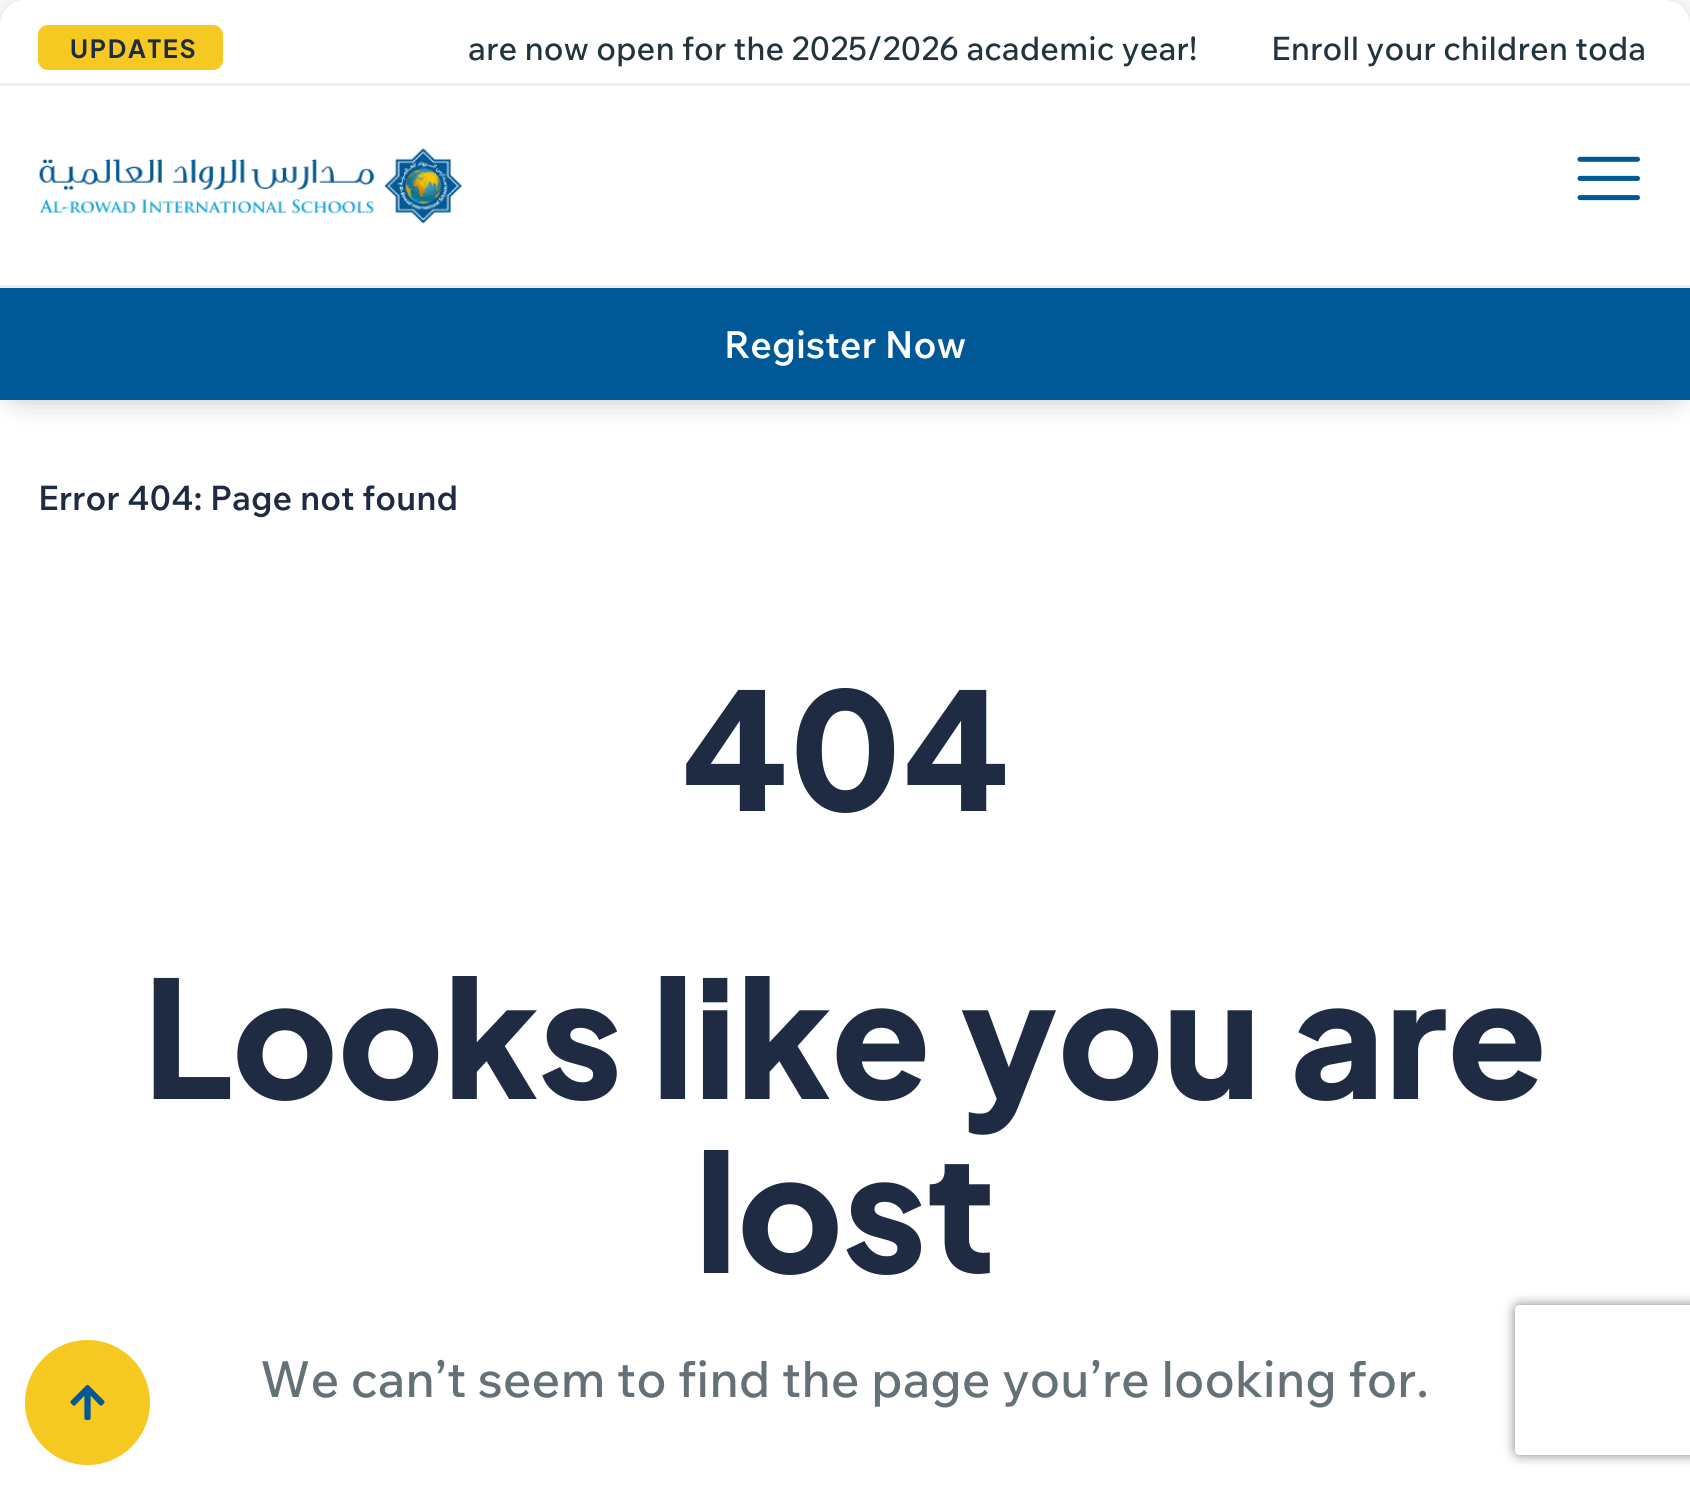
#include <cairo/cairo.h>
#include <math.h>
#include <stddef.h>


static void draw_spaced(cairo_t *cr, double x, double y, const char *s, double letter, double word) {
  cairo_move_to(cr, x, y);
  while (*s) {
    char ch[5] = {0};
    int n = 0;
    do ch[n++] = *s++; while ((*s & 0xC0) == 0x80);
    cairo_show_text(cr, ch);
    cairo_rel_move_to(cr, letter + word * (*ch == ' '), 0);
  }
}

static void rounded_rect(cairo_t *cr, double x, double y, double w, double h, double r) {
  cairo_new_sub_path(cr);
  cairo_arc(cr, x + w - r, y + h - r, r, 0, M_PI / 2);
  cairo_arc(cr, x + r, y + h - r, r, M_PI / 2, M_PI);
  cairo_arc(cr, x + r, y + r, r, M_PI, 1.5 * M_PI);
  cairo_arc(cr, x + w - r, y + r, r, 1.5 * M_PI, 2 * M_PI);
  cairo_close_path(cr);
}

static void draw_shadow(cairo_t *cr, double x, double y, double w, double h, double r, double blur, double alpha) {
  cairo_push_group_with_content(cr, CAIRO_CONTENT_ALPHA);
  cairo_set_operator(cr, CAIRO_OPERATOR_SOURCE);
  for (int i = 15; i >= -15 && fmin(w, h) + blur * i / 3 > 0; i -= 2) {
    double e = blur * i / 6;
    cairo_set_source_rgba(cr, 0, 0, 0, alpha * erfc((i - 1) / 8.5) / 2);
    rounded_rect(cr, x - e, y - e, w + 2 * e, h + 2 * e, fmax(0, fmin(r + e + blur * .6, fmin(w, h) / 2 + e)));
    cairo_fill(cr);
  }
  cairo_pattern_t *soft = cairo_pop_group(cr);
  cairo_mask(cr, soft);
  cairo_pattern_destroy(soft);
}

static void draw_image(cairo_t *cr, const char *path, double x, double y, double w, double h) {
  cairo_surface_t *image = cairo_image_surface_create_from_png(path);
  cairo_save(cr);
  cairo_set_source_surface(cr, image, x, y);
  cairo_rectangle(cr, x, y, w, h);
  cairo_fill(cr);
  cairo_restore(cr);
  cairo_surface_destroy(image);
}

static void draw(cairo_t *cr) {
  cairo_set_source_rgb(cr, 1, 1, 1);
  cairo_paint(cr);
  cairo_set_source_rgb(cr, 0, 0, 0);
  draw_shadow(cr, 0, 3, 1690, 400, 25, 12.5, 0.2);
  cairo_set_source_rgb(cr, 1, 1, 1);
  rounded_rect(cr, 0, 0, 1690, 400, 25);
  cairo_fill(cr);
  cairo_set_source_rgb(cr, 240 / 255.0, 240 / 255.0, 240 / 255.0);
  cairo_rectangle(cr, 0, 83, 1690, 3);
  cairo_fill(cr);
  cairo_set_source_rgb(cr, 246 / 255.0, 200 / 255.0, 34 / 255.0);
  rounded_rect(cr, 38, 25, 185, 45, 10);
  cairo_fill(cr);
  cairo_set_source_rgb(cr, 240 / 255.0, 240 / 255.0, 240 / 255.0);
  cairo_rectangle(cr, 0, 285, 1690, 3);
  cairo_fill(cr);
  draw_image(cr, "images/1.png", 39, 148, 424, 76);
  draw_image(cr, "images/2.png", 1577, 156, 63, 45);
  cairo_set_source_rgb(cr, 0, 89 / 255.0, 150 / 255.0);
  cairo_rectangle(cr, 0, 288, 1690, 112);
  cairo_fill(cr);
  cairo_set_source_rgb(cr, 246 / 255.0, 200 / 255.0, 34 / 255.0);
  cairo_arc(cr, 87.5, 1402.5, 62.5, 0, 2 * M_PI);
  cairo_fill(cr);
  draw_image(cr, "images/3.png", 70, 1385, 35, 35);
  cairo_save(cr);
  cairo_set_fill_rule(cr, CAIRO_FILL_RULE_EVEN_ODD);
  cairo_new_path(cr);
  cairo_move_to(cr, 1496, 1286);
  cairo_line_to(cr, 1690, 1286);
  cairo_line_to(cr, 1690, 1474);
  cairo_line_to(cr, 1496, 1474);
  cairo_close_path(cr);
  cairo_move_to(cr, 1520, 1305);
  cairo_line_to(cr, 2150, 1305);
  cairo_curve_to(cr, 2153, 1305, 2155, 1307, 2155, 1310);
  cairo_line_to(cr, 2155, 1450);
  cairo_curve_to(cr, 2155, 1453, 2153, 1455, 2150, 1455);
  cairo_line_to(cr, 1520, 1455);
  cairo_curve_to(cr, 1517, 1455, 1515, 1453, 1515, 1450);
  cairo_line_to(cr, 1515, 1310);
  cairo_curve_to(cr, 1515, 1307, 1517, 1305, 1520, 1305);
  cairo_close_path(cr);
  cairo_clip(cr);
  cairo_set_source_rgb(cr, 128 / 255.0, 128 / 255.0, 128 / 255.0);
  draw_shadow(cr, 1515, 1305, 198, 150, 5, 6, 1);
  cairo_restore(cr);
  cairo_select_font_face(cr, "Plus Jakarta Sans", CAIRO_FONT_SLANT_NORMAL, CAIRO_FONT_WEIGHT_BOLD);
  cairo_set_font_size(cr, 25);
  cairo_set_source_rgb(cr, 30 / 255.0, 43 / 255.0, 66 / 255.0);
  draw_spaced(cr, 70, 58, "UPDATES", 1.75, 0);
  cairo_select_font_face(cr, "Wix Madefor Text Medium", CAIRO_FONT_SLANT_NORMAL, CAIRO_FONT_WEIGHT_NORMAL);
  cairo_set_font_size(cr, 32.5);
  cairo_set_source_rgb(cr, 34 / 255.0, 53 / 255.0, 61 / 255.0);
  cairo_move_to(cr, 468, 60);
  cairo_show_text(cr, "are now open for the 2025/2026 academic year!");
  cairo_move_to(cr, 1271, 60);
  cairo_show_text(cr, "Enroll your children toda");
  cairo_select_font_face(cr, "Wix Madefor Text SemiBold", CAIRO_FONT_SLANT_NORMAL, CAIRO_FONT_WEIGHT_NORMAL);
  cairo_set_font_size(cr, 37.5);
  cairo_set_source_rgb(cr, 1, 1, 1);
  cairo_move_to(cr, 724, 358);
  cairo_show_text(cr, "Register Now");
  cairo_set_font_size(cr, 34);
  cairo_set_source_rgb(cr, 30 / 255.0, 43 / 255.0, 66 / 255.0);
  cairo_move_to(cr, 38, 510);
  cairo_show_text(cr, "Error 404: Page not found");
  cairo_select_font_face(cr, "Plus Jakarta Sans ExtraBold", CAIRO_FONT_SLANT_NORMAL, CAIRO_FONT_WEIGHT_NORMAL);
  cairo_set_font_size(cr, 162.5);
  cairo_move_to(cr, 681, 811);
  cairo_show_text(cr, "404");
  cairo_move_to(cr, 143, 1099);
  cairo_show_text(cr, "Looks like you are");
  cairo_move_to(cr, 695, 1273);
  cairo_show_text(cr, "lost");
  cairo_select_font_face(cr, "Wix Madefor Text Medium", CAIRO_FONT_SLANT_NORMAL, CAIRO_FONT_WEIGHT_NORMAL);
  cairo_set_font_size(cr, 50);
  cairo_set_source_rgb(cr, 100 / 255.0, 114 / 255.0, 119 / 255.0);
  cairo_move_to(cr, 260, 1397);
  cairo_show_text(cr, "We can’t seem to find the page you’re looking for.");
}

int main(void) {
  cairo_surface_t *surface = cairo_image_surface_create(CAIRO_FORMAT_RGB24, 1690, 1490);
  cairo_t *cr = cairo_create(surface);
  cairo_font_options_t *options = cairo_font_options_create();
  cairo_font_options_set_hint_metrics(options, CAIRO_HINT_METRICS_OFF);
  cairo_font_options_set_hint_style(options, CAIRO_HINT_STYLE_NONE);
  cairo_set_font_options(cr, options);
  cairo_set_miter_limit(cr, 4);
  draw(cr);
  cairo_surface_write_to_png(surface, "out.png");
  cairo_font_options_destroy(options);
  cairo_destroy(cr);
  cairo_surface_destroy(surface);
  return 0;
}
